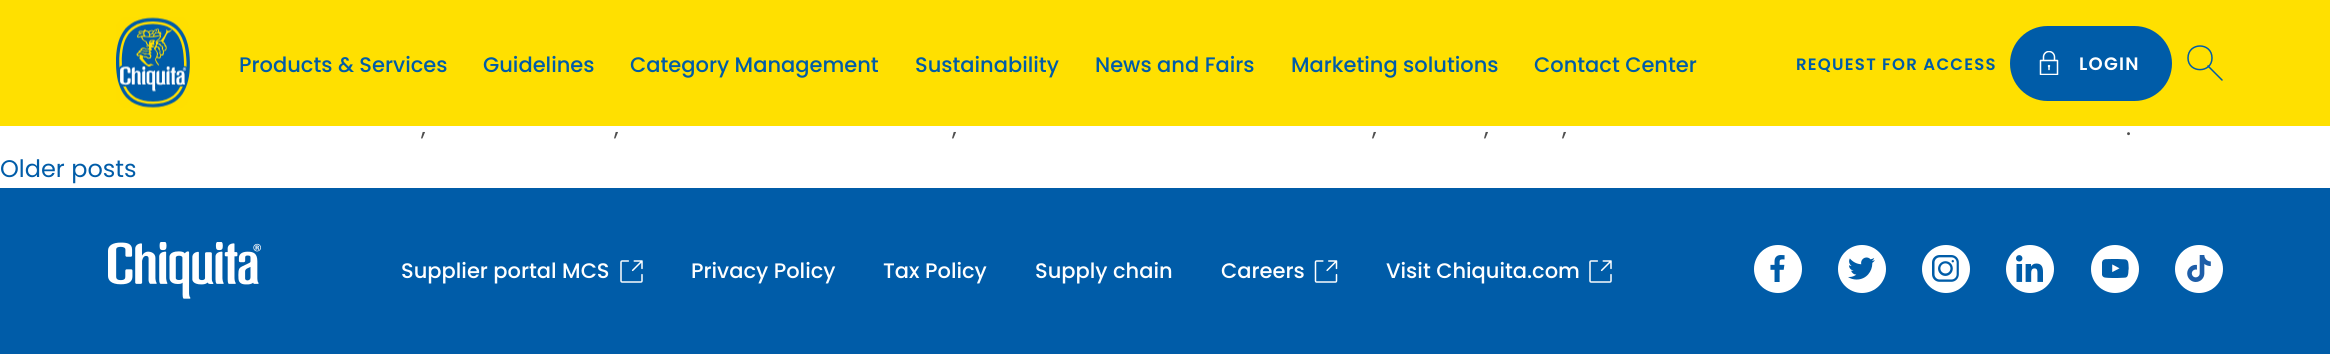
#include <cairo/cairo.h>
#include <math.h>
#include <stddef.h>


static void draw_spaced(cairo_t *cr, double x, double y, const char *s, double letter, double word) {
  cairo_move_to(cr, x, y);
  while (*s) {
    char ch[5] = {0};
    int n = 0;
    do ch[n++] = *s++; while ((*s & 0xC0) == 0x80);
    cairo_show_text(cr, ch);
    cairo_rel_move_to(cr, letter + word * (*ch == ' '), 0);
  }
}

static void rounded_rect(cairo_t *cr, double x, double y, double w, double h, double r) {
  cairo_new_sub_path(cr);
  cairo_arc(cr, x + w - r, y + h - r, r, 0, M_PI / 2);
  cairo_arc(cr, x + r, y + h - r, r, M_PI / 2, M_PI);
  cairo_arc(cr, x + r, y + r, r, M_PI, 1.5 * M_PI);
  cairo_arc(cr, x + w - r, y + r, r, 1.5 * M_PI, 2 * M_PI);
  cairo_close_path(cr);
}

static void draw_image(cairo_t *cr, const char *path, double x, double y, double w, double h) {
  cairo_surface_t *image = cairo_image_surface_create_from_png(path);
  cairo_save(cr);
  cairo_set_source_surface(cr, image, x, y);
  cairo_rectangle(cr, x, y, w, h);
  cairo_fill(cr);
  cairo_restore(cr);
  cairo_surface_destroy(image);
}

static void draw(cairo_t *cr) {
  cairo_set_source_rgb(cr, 1, 1, 1);
  cairo_paint(cr);
  cairo_set_source_rgb(cr, 1, 224 / 255.0, 0);
  cairo_rectangle(cr, 0, 0, 2330, 126);
  cairo_fill(cr);
  draw_image(cr, "images/1.png", 116, 17, 74, 91);
  cairo_set_source_rgb(cr, 0, 92 / 255.0, 168 / 255.0);
  rounded_rect(cr, 2010, 26, 162, 75, 37.5);
  cairo_fill(cr);
  draw_image(cr, "images/2.png", 2039, 51, 20, 24);
  cairo_new_path(cr);
  cairo_move_to(cr, 2212, 58);
  cairo_curve_to(cr, 2212, 73.5, 2188, 73.5, 2188, 58);
  cairo_curve_to(cr, 2188, 42, 2212, 42, 2212, 58);
  cairo_close_path(cr);
  cairo_set_line_width(cr, 1.5);
  cairo_set_line_join(cr, CAIRO_LINE_JOIN_ROUND);
  cairo_stroke(cr);
  cairo_new_path(cr);
  cairo_move_to(cr, 2208, 66);
  cairo_line_to(cr, 2222, 80);
  cairo_set_line_cap(cr, CAIRO_LINE_CAP_ROUND);
  cairo_stroke(cr);
  cairo_rectangle(cr, 0, 188, 2330, 166);
  cairo_fill(cr);
  draw_image(cr, "images/3.png", 108, 242, 153, 57);
  draw_image(cr, "images/4.png", 620, 260, 23, 23);
  draw_image(cr, "images/5.png", 1314, 260, 24, 23);
  draw_image(cr, "images/4.png", 1589, 260, 23, 23);
  cairo_set_source_rgb(cr, 1, 1, 1);
  cairo_arc(cr, 1778, 269, 24, 0, 2 * M_PI);
  cairo_fill(cr);
  draw_image(cr, "images/6.png", 1770, 255, 15, 27);
  cairo_arc(cr, 1862, 269, 24, 0, 2 * M_PI);
  cairo_fill(cr);
  draw_image(cr, "images/7.png", 1848, 257, 27, 23);
  cairo_arc(cr, 1946, 269, 24, 0, 2 * M_PI);
  cairo_fill(cr);
  draw_image(cr, "images/8.png", 1932, 255, 27, 27);
  cairo_arc(cr, 2030, 269, 24, 0, 2 * M_PI);
  cairo_fill(cr);
  draw_image(cr, "images/9.png", 2016, 255, 27, 27);
  cairo_arc(cr, 2115, 269, 24, 0, 2 * M_PI);
  cairo_fill(cr);
  draw_image(cr, "images/10.png", 2102, 259, 27, 19);
  cairo_arc(cr, 2199, 269, 24, 0, 2 * M_PI);
  cairo_fill(cr);
  draw_image(cr, "images/11.png", 2187, 255, 24, 27);
  cairo_select_font_face(cr, "Poppins Medium", CAIRO_FONT_SLANT_NORMAL, CAIRO_FONT_WEIGHT_NORMAL);
  cairo_set_font_size(cr, 21);
  cairo_set_source_rgb(cr, 0, 92 / 255.0, 168 / 255.0);
  cairo_move_to(cr, 239, 72);
  cairo_show_text(cr, "Products & Services");
  cairo_move_to(cr, 483, 72);
  cairo_show_text(cr, "Guidelines");
  cairo_move_to(cr, 630, 72);
  cairo_show_text(cr, "Category Management");
  cairo_move_to(cr, 915, 72);
  cairo_show_text(cr, "Sustainability");
  cairo_move_to(cr, 1095, 72);
  cairo_show_text(cr, "News and Fairs");
  cairo_move_to(cr, 1291, 72);
  cairo_show_text(cr, "Marketing solutions");
  cairo_move_to(cr, 1534, 72);
  cairo_show_text(cr, "Contact Center");
  cairo_select_font_face(cr, "Poppins SemiBold", CAIRO_FONT_SLANT_NORMAL, CAIRO_FONT_WEIGHT_NORMAL);
  cairo_set_font_size(cr, 16.5);
  draw_spaced(cr, 1796, 70, "REQUEST FOR ACCESS", 1.25, 0);
  cairo_set_font_size(cr, 18);
  cairo_set_source_rgb(cr, 1, 1, 1);
  draw_spaced(cr, 2079, 70, "LOGIN", 1.25, 0);
  cairo_select_font_face(cr, "Poppins", CAIRO_FONT_SLANT_NORMAL, CAIRO_FONT_WEIGHT_NORMAL);
  cairo_set_font_size(cr, 24);
  cairo_set_source_rgb(cr, 79 / 255.0, 79 / 255.0, 79 / 255.0);
  cairo_move_to(cr, 421, 135);
  cairo_show_text(cr, ",");
  cairo_move_to(cr, 614, 135);
  cairo_show_text(cr, ",");
  cairo_move_to(cr, 952, 135);
  cairo_show_text(cr, ",");
  cairo_move_to(cr, 1372, 135);
  cairo_show_text(cr, ",");
  cairo_move_to(cr, 1484, 135);
  cairo_show_text(cr, ",");
  cairo_move_to(cr, 1562, 135);
  cairo_show_text(cr, ",");
  cairo_move_to(cr, 2126, 135);
  cairo_show_text(cr, ".");
  cairo_set_source_rgb(cr, 0, 92 / 255.0, 168 / 255.0);
  cairo_move_to(cr, 0, 177);
  cairo_show_text(cr, "Older posts");
  cairo_select_font_face(cr, "Poppins Medium", CAIRO_FONT_SLANT_NORMAL, CAIRO_FONT_WEIGHT_NORMAL);
  cairo_set_font_size(cr, 21);
  cairo_set_source_rgb(cr, 1, 1, 1);
  cairo_move_to(cr, 401, 278);
  cairo_show_text(cr, "Supplier portal MCS");
  cairo_move_to(cr, 691, 278);
  cairo_show_text(cr, "Privacy Policy");
  cairo_move_to(cr, 883, 278);
  cairo_show_text(cr, "Tax Policy");
  cairo_move_to(cr, 1035, 278);
  cairo_show_text(cr, "Supply chain");
  cairo_move_to(cr, 1221, 278);
  cairo_show_text(cr, "Careers");
  cairo_move_to(cr, 1386, 278);
  cairo_show_text(cr, "Visit Chiquita.com");
}

int main(void) {
  cairo_surface_t *surface = cairo_image_surface_create(CAIRO_FORMAT_RGB24, 2330, 354);
  cairo_t *cr = cairo_create(surface);
  cairo_font_options_t *options = cairo_font_options_create();
  cairo_font_options_set_hint_metrics(options, CAIRO_HINT_METRICS_OFF);
  cairo_font_options_set_hint_style(options, CAIRO_HINT_STYLE_NONE);
  cairo_set_font_options(cr, options);
  cairo_set_miter_limit(cr, 4);
  draw(cr);
  cairo_surface_write_to_png(surface, "out.png");
  cairo_font_options_destroy(options);
  cairo_destroy(cr);
  cairo_surface_destroy(surface);
  return 0;
}
